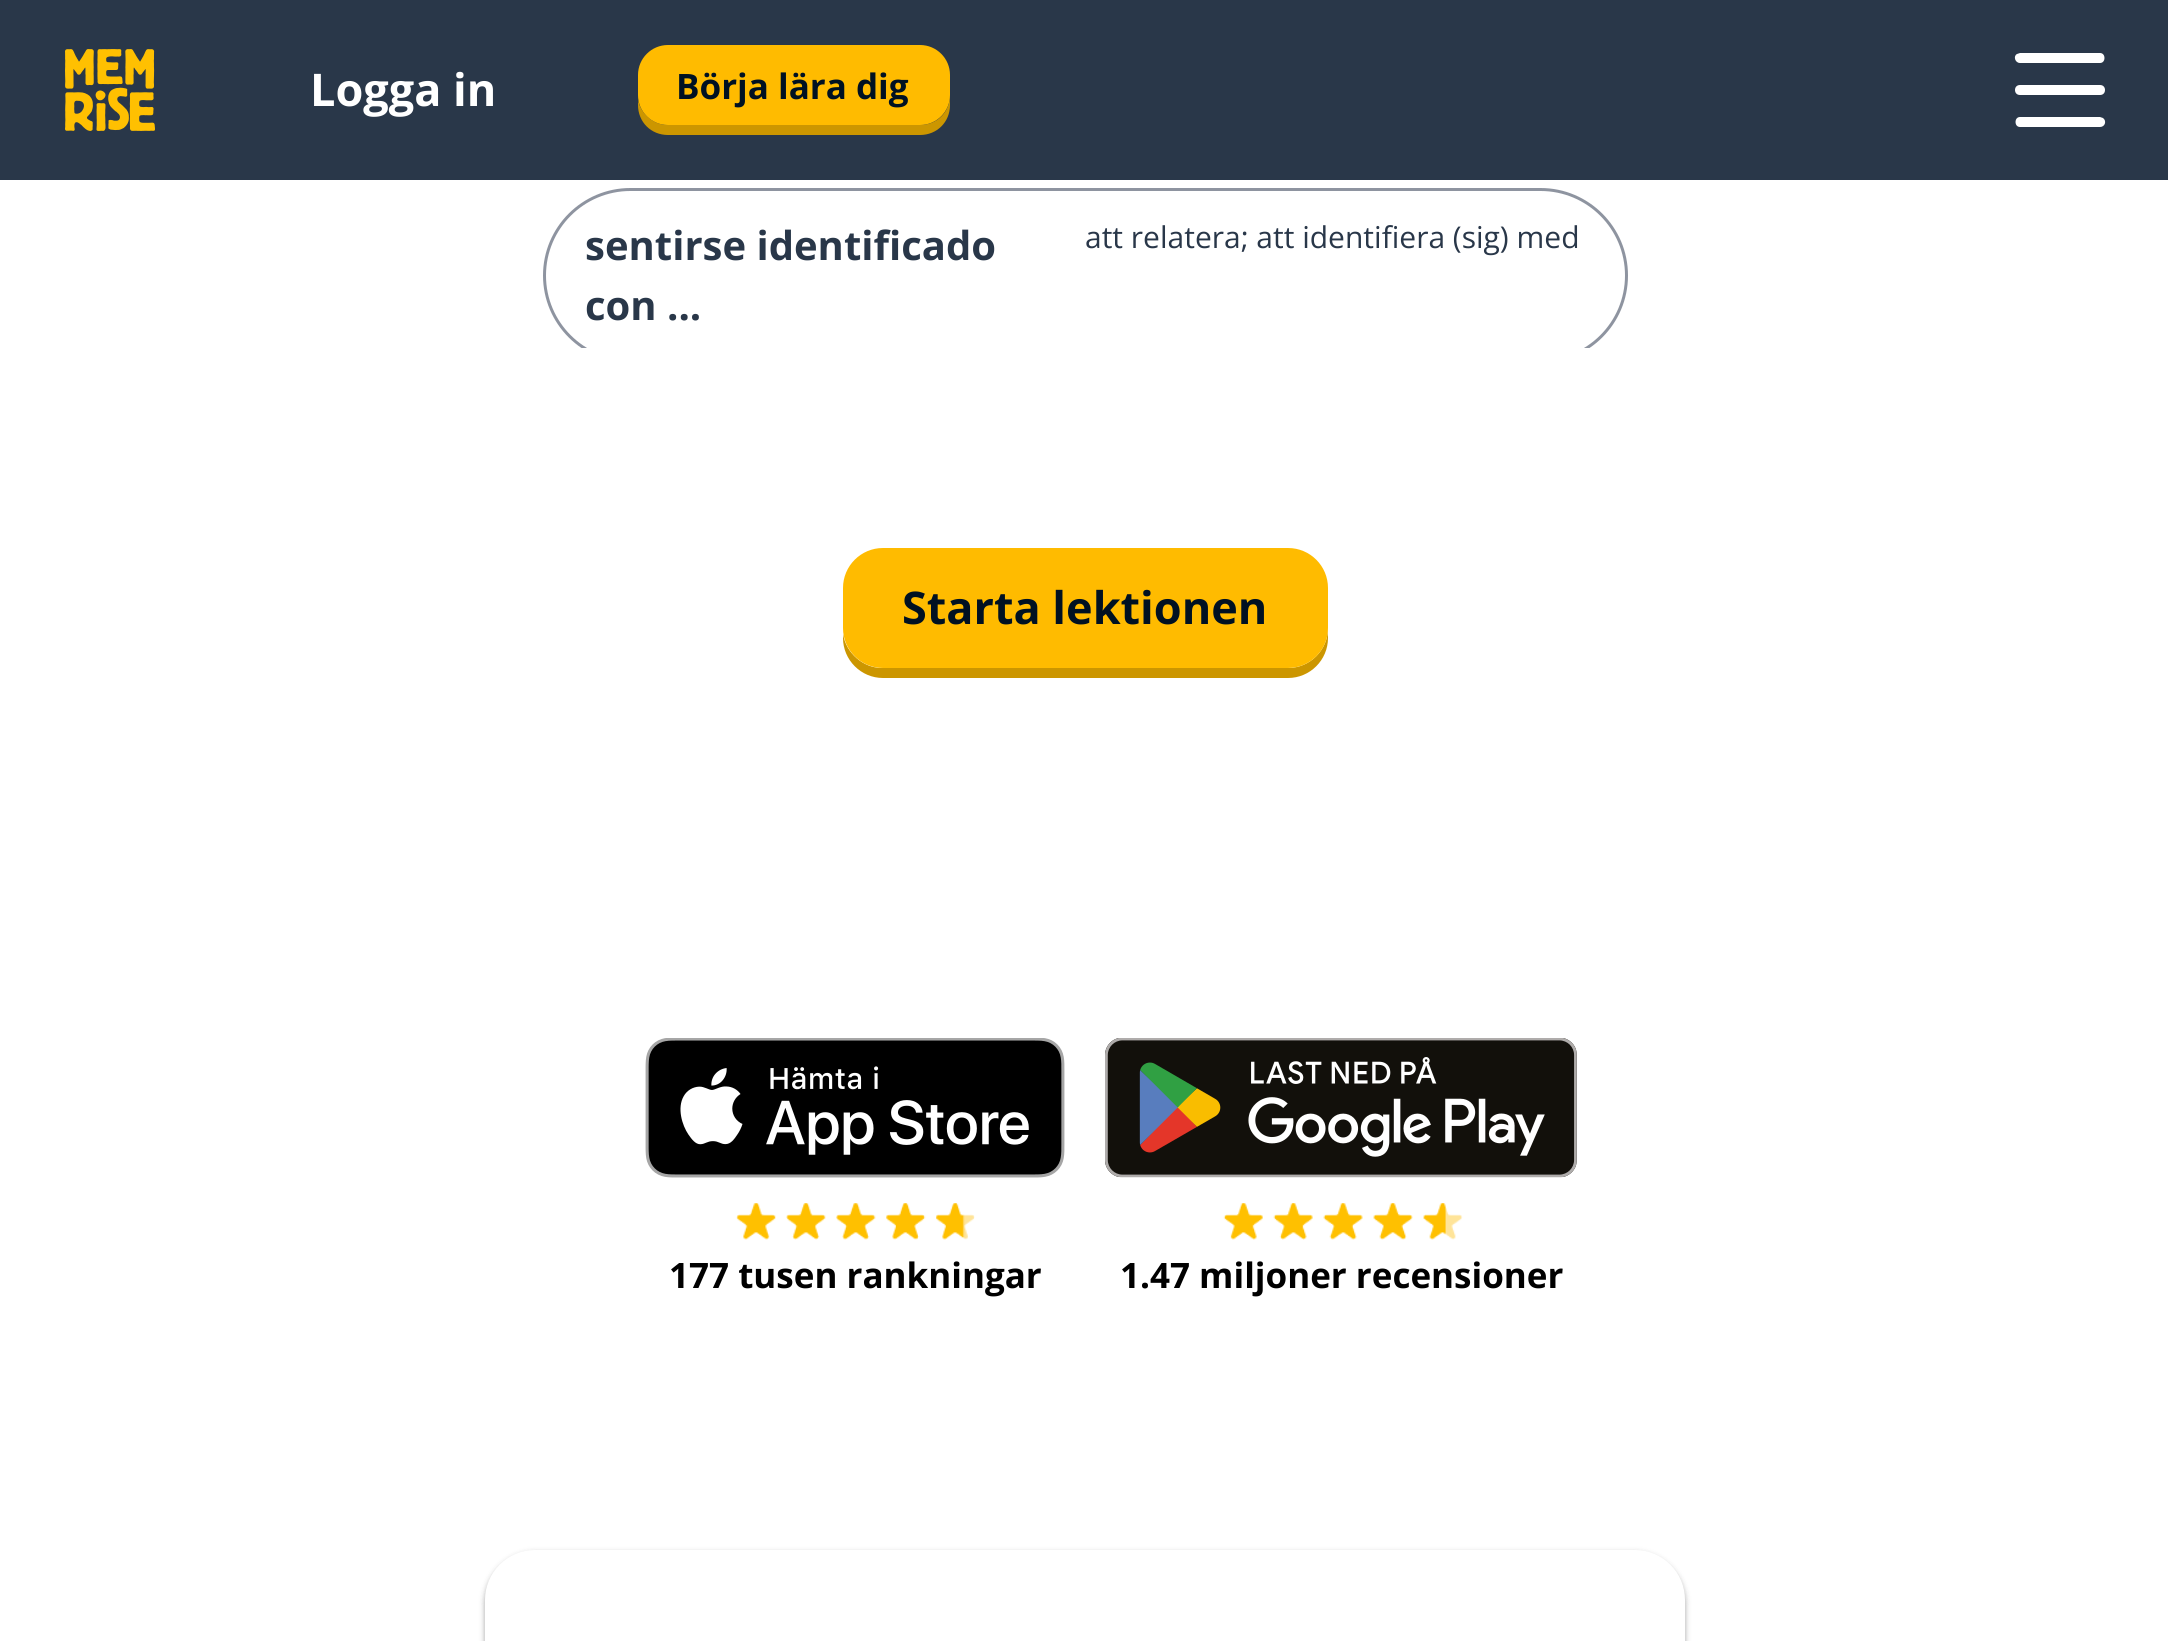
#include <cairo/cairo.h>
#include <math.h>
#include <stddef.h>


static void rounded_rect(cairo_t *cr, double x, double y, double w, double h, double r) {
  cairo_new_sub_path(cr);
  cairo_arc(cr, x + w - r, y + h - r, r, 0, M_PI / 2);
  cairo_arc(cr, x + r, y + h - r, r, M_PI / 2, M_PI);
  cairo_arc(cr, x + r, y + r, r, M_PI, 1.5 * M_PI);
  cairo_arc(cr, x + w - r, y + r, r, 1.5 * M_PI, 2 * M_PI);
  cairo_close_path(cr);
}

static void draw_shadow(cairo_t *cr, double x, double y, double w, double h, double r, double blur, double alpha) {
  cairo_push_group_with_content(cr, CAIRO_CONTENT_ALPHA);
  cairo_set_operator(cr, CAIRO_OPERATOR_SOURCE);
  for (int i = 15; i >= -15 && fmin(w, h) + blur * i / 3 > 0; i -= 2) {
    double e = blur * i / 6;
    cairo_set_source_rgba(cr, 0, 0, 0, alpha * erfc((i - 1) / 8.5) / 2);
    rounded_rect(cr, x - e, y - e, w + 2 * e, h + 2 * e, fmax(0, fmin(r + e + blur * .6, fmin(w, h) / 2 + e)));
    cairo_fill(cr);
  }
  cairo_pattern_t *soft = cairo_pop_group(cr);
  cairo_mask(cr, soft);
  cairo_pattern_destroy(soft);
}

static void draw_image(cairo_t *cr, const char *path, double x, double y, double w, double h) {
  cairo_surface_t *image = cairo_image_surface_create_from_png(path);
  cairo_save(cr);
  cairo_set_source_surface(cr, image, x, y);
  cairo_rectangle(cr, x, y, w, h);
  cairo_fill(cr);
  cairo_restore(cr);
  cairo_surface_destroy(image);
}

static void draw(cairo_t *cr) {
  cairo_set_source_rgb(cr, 1, 1, 1);
  cairo_paint(cr);
  cairo_set_source_rgb(cr, 41 / 255.0, 55 / 255.0, 73 / 255.0);
  cairo_rectangle(cr, 0, 0, 2168, 180);
  cairo_fill(cr);
  draw_image(cr, "images/1.png", 65, 49, 90, 82);
  cairo_set_source_rgb(cr, 204 / 255.0, 150 / 255.0, 0);
  cairo_new_path(cr);
  cairo_move_to(cr, 638, 100);
  cairo_line_to(cr, 638, 105);
  cairo_curve_to(cr, 638, 122, 651, 135, 668, 135);
  cairo_line_to(cr, 920, 135);
  cairo_curve_to(cr, 937, 135, 950, 122, 950, 105);
  cairo_line_to(cr, 950, 95);
  cairo_curve_to(cr, 950, 112, 937, 125, 920, 125);
  cairo_line_to(cr, 668, 125);
  cairo_curve_to(cr, 653, 125, 641, 114, 638, 100);
  cairo_close_path(cr);
  cairo_fill(cr);
  cairo_set_source_rgb(cr, 1, 187 / 255.0, 0);
  rounded_rect(cr, 638, 45, 312, 80, 30);
  cairo_fill(cr);
  cairo_set_source_rgb(cr, 1, 1, 1);
  cairo_new_path(cr);
  cairo_move_to(cr, 2020, 63);
  cairo_curve_to(cr, 2015, 63, 2013, 56, 2017, 54);
  cairo_line_to(cr, 2020, 53);
  cairo_line_to(cr, 2100, 53);
  cairo_curve_to(cr, 2106, 53, 2106, 63, 2100, 63);
  cairo_close_path(cr);
  cairo_move_to(cr, 2020, 95);
  cairo_curve_to(cr, 2017, 95, 2015, 93, 2015, 90);
  cairo_curve_to(cr, 2015, 87, 2017, 85, 2020, 85);
  cairo_line_to(cr, 2100, 85);
  cairo_curve_to(cr, 2103, 85, 2105, 87, 2105, 90);
  cairo_curve_to(cr, 2105, 93, 2103, 95, 2100, 95);
  cairo_close_path(cr);
  cairo_move_to(cr, 2020, 127);
  cairo_curve_to(cr, 2014, 127, 2014, 117, 2020, 117);
  cairo_line_to(cr, 2100, 117);
  cairo_line_to(cr, 2103, 118);
  cairo_curve_to(cr, 2107, 121, 2105, 127, 2100, 127);
  cairo_close_path(cr);
  cairo_fill(cr);
  cairo_save(cr);
  cairo_rectangle(cr, 543, 0, 1085, 348);
  cairo_clip(cr);
  rounded_rect(cr, 544.5, 189.5, 1082, 172, 86);
  cairo_set_source_rgb(cr, 142 / 255.0, 148 / 255.0, 160 / 255.0);
  cairo_set_line_width(cr, 3);
  cairo_stroke(cr);
  cairo_restore(cr);
  cairo_set_source_rgb(cr, 204 / 255.0, 150 / 255.0, 0);
  cairo_new_path(cr);
  cairo_move_to(cr, 843, 634);
  cairo_line_to(cr, 843, 638);
  cairo_curve_to(cr, 843, 660, 861, 678, 883, 678);
  cairo_line_to(cr, 1288, 678);
  cairo_curve_to(cr, 1310, 678, 1328, 660, 1328, 638);
  cairo_line_to(cr, 1328, 598);
  cairo_line_to(cr, 1328, 592);
  cairo_line_to(cr, 1328, 628);
  cairo_curve_to(cr, 1328, 650, 1310, 668, 1288, 668);
  cairo_line_to(cr, 882, 668);
  cairo_curve_to(cr, 863, 668, 846, 653, 843, 634);
  cairo_close_path(cr);
  cairo_fill(cr);
  cairo_set_source_rgb(cr, 1, 187 / 255.0, 0);
  rounded_rect(cr, 843, 548, 485, 120, 40);
  cairo_fill(cr);
  draw_image(cr, "images/2.png", 645, 1038, 420, 140);
  draw_image(cr, "images/3.png", 736, 1203, 239, 37);
  draw_image(cr, "images/4.png", 1105, 1038, 472, 140);
  draw_image(cr, "images/5.png", 1223, 1203, 240, 37);
  cairo_set_source_rgb(cr, 0, 0, 0);
  draw_shadow(cr, 485, 1553, 1200, 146, 50, 2.5, 0.24);
  draw_shadow(cr, 485, 1553, 1200, 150, 50, 4, 0.14);
  cairo_set_source_rgb(cr, 1, 1, 1);
  rounded_rect(cr, 485, 1550, 1200, 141, 50);
  cairo_fill(cr);
  cairo_select_font_face(cr, "Open Sans", CAIRO_FONT_SLANT_NORMAL, CAIRO_FONT_WEIGHT_BOLD);
  cairo_set_font_size(cr, 45);
  cairo_move_to(cr, 310, 106);
  cairo_show_text(cr, "Logga in");
  cairo_set_font_size(cr, 35);
  cairo_set_source_rgb(cr, 0, 17 / 255.0, 34 / 255.0);
  cairo_move_to(cr, 676, 99);
  cairo_show_text(cr, "Börja lära dig");
  cairo_set_font_size(cr, 40);
  cairo_set_source_rgb(cr, 41 / 255.0, 55 / 255.0, 73 / 255.0);
  cairo_move_to(cr, 585, 260);
  cairo_show_text(cr, "sentirse identificado");
  cairo_move_to(cr, 585, 320);
  cairo_show_text(cr, "con ...");
  cairo_select_font_face(cr, "Open Sans", CAIRO_FONT_SLANT_NORMAL, CAIRO_FONT_WEIGHT_NORMAL);
  cairo_set_font_size(cr, 30);
  cairo_move_to(cr, 1085, 248);
  cairo_show_text(cr, "att relatera; att identifiera (sig) med");
  cairo_select_font_face(cr, "Open Sans", CAIRO_FONT_SLANT_NORMAL, CAIRO_FONT_WEIGHT_BOLD);
  cairo_set_font_size(cr, 45);
  cairo_set_source_rgb(cr, 0, 17 / 255.0, 34 / 255.0);
  cairo_move_to(cr, 902, 624);
  cairo_show_text(cr, "Starta lektionen");
  cairo_set_font_size(cr, 35);
  cairo_set_source_rgb(cr, 0, 0, 0);
  cairo_move_to(cr, 669, 1288);
  cairo_show_text(cr, "177 tusen rankningar");
  cairo_move_to(cr, 1120, 1288);
  cairo_show_text(cr, "1.47 miljoner recensioner");
}

int main(void) {
  cairo_surface_t *surface = cairo_image_surface_create(CAIRO_FORMAT_RGB24, 2168, 1641);
  cairo_t *cr = cairo_create(surface);
  cairo_font_options_t *options = cairo_font_options_create();
  cairo_font_options_set_hint_metrics(options, CAIRO_HINT_METRICS_OFF);
  cairo_font_options_set_hint_style(options, CAIRO_HINT_STYLE_NONE);
  cairo_set_font_options(cr, options);
  cairo_set_miter_limit(cr, 4);
  draw(cr);
  cairo_surface_write_to_png(surface, "out.png");
  cairo_font_options_destroy(options);
  cairo_destroy(cr);
  cairo_surface_destroy(surface);
  return 0;
}
